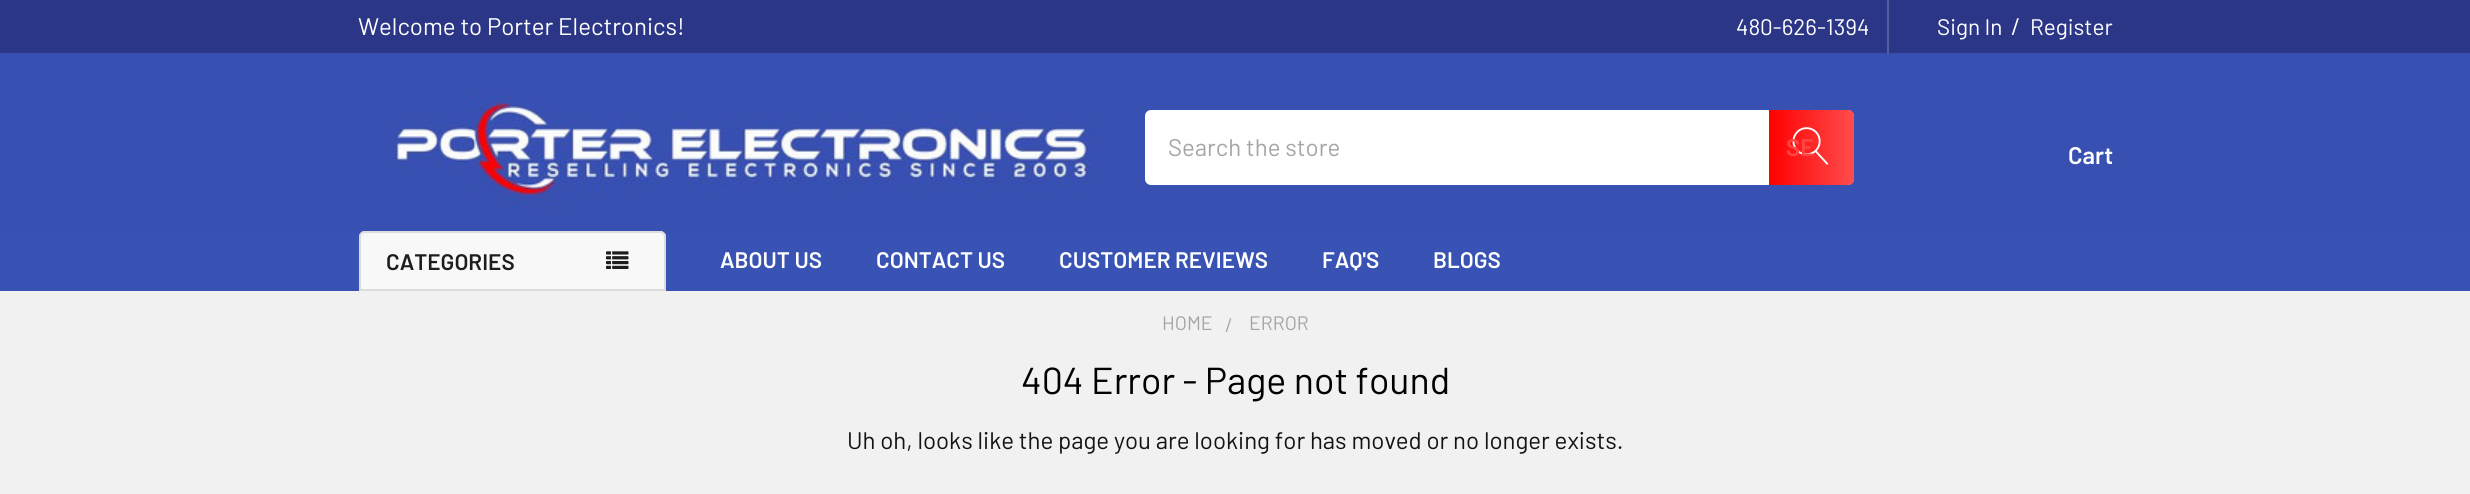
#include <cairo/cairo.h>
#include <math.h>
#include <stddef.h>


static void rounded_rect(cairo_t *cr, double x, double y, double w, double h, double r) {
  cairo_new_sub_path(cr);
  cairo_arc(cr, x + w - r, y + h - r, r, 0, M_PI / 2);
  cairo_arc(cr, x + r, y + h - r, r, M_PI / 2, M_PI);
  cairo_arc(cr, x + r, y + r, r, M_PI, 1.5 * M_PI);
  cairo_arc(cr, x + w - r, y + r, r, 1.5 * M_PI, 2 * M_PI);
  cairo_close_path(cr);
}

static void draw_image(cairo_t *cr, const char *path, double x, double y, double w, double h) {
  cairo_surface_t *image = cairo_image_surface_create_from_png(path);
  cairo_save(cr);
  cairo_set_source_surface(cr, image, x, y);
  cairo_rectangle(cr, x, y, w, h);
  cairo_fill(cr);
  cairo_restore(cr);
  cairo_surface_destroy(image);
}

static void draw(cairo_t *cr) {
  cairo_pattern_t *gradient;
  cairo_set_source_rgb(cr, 241 / 255.0, 241 / 255.0, 242 / 255.0);
  cairo_paint(cr);
  cairo_set_source_rgb(cr, 55 / 255.0, 80 / 255.0, 178 / 255.0);
  cairo_rectangle(cr, 0, 55, 2470, 176);
  cairo_fill(cr);
  cairo_set_source_rgb(cr, 43 / 255.0, 54 / 255.0, 135 / 255.0);
  cairo_rectangle(cr, 0, 0, 2470, 53);
  cairo_fill(cr);
  cairo_set_source_rgb(cr, 56 / 255.0, 79 / 255.0, 178 / 255.0);
  cairo_rectangle(cr, 0, 53, 2470, 2);
  cairo_fill(cr);
  cairo_set_source_rgb(cr, 85 / 255.0, 94 / 255.0, 159 / 255.0);
  cairo_rectangle(cr, 1887, 0, 2, 53);
  cairo_fill(cr);
  draw_image(cr, "images/1.png", 394, 92, 700, 117);
  cairo_set_source_rgb(cr, 1, 1, 1);
  rounded_rect(cr, 1145, 110, 709, 75, 6);
  cairo_fill(cr);
  gradient = cairo_pattern_create_linear(1769, 147, 1854, 147);
  cairo_pattern_add_color_stop_rgba(gradient, 0, 1, 0, 0, 1);
  cairo_pattern_add_color_stop_rgba(gradient, 1, 1, 0, 0, 0.7);
  cairo_set_source(cr, gradient);
  cairo_pattern_destroy(gradient);
  cairo_new_path(cr);
  cairo_move_to(cr, 1769, 110);
  cairo_line_to(cr, 1848, 110);
  cairo_curve_to(cr, 1851.5, 110, 1854, 112.5, 1854, 116);
  cairo_line_to(cr, 1854, 179);
  cairo_curve_to(cr, 1854, 182.5, 1851.5, 185, 1848, 185);
  cairo_line_to(cr, 1769, 185);
  cairo_close_path(cr);
  cairo_fill(cr);
  draw_image(cr, "images/2.png", 1792, 127, 37, 38);
  cairo_set_source_rgb(cr, 56 / 255.0, 83 / 255.0, 180 / 255.0);
  cairo_rectangle(cr, 0, 231, 2470, 60);
  cairo_fill(cr);
  cairo_set_source_rgb(cr, 248 / 255.0, 248 / 255.0, 248 / 255.0);
  rounded_rect(cr, 359, 231, 307, 60, 6);
  cairo_fill(cr);
  cairo_new_path(cr);
  cairo_move_to(cr, 365, 232);
  cairo_line_to(cr, 660, 232);
  cairo_curve_to(cr, 663, 232, 665, 234, 665, 237);
  cairo_line_to(cr, 665, 290);
  cairo_line_to(cr, 360, 290);
  cairo_line_to(cr, 360, 237);
  cairo_curve_to(cr, 360, 234, 362, 232, 365, 232);
  cairo_close_path(cr);
  cairo_set_source_rgb(cr, 220 / 255.0, 220 / 255.0, 220 / 255.0);
  cairo_stroke(cr);
  draw_image(cr, "images/3.png", 606, 251, 23, 18);
  cairo_select_font_face(cr, "Barlow", CAIRO_FONT_SLANT_NORMAL, CAIRO_FONT_WEIGHT_NORMAL);
  cairo_set_font_size(cr, 24);
  cairo_set_source_rgb(cr, 1, 1, 1);
  cairo_move_to(cr, 358, 35);
  cairo_show_text(cr, "Welcome to Porter Electronics!");
  cairo_set_font_size(cr, 22.5);
  cairo_move_to(cr, 1736, 35);
  cairo_show_text(cr, "480-626-1394");
  cairo_move_to(cr, 1937, 35);
  cairo_show_text(cr, "Sign In");
  cairo_set_font_size(cr, 24);
  cairo_move_to(cr, 2011, 35);
  cairo_show_text(cr, "/");
  cairo_set_font_size(cr, 22.5);
  cairo_move_to(cr, 2030, 35);
  cairo_show_text(cr, "Register");
  cairo_set_font_size(cr, 24);
  cairo_set_source_rgb(cr, 165 / 255.0, 165 / 255.0, 165 / 255.0);
  cairo_move_to(cr, 1168, 156);
  cairo_show_text(cr, "Search the store");
  cairo_select_font_face(cr, "Barlow SemiBold", CAIRO_FONT_SLANT_NORMAL, CAIRO_FONT_WEIGHT_NORMAL);
  cairo_set_source_rgb(cr, 1, 68 / 255.0, 68 / 255.0);
  cairo_move_to(cr, 1786, 156);
  cairo_show_text(cr, "SE");
  cairo_set_source_rgb(cr, 1, 1, 1);
  cairo_move_to(cr, 2068, 164);
  cairo_show_text(cr, "Cart");
  cairo_set_font_size(cr, 22.5);
  cairo_set_source_rgb(cr, 29 / 255.0, 29 / 255.0, 29 / 255.0);
  cairo_move_to(cr, 386, 270);
  cairo_show_text(cr, "CATEGORIES");
  cairo_set_source_rgb(cr, 1, 1, 1);
  cairo_move_to(cr, 720, 268);
  cairo_show_text(cr, "ABOUT US");
  cairo_move_to(cr, 876, 268);
  cairo_show_text(cr, "CONTACT US");
  cairo_move_to(cr, 1059, 268);
  cairo_show_text(cr, "CUSTOMER REVIEWS");
  cairo_move_to(cr, 1322, 268);
  cairo_show_text(cr, "FAQ'S");
  cairo_move_to(cr, 1433, 268);
  cairo_show_text(cr, "BLOGS");
  cairo_select_font_face(cr, "Barlow", CAIRO_FONT_SLANT_NORMAL, CAIRO_FONT_WEIGHT_NORMAL);
  cairo_set_font_size(cr, 19.5);
  cairo_set_source_rgb(cr, 165 / 255.0, 165 / 255.0, 165 / 255.0);
  cairo_move_to(cr, 1162, 330);
  cairo_show_text(cr, "HOME");
  cairo_move_to(cr, 1225, 332);
  cairo_show_text(cr, "/");
  cairo_move_to(cr, 1249, 330);
  cairo_show_text(cr, "ERROR");
  cairo_set_font_size(cr, 37.5);
  cairo_set_source_rgb(cr, 0, 0, 0);
  cairo_move_to(cr, 1021, 394);
  cairo_show_text(cr, "404 Error - Page not found");
  cairo_set_font_size(cr, 24);
  cairo_set_source_rgb(cr, 19 / 255.0, 19 / 255.0, 19 / 255.0);
  cairo_move_to(cr, 847, 449);
  cairo_show_text(cr, "Uh oh, looks like the page you are looking for has moved or no longer exists.");
}

int main(void) {
  cairo_surface_t *surface = cairo_image_surface_create(CAIRO_FORMAT_RGB24, 2470, 494);
  cairo_t *cr = cairo_create(surface);
  cairo_font_options_t *options = cairo_font_options_create();
  cairo_font_options_set_hint_metrics(options, CAIRO_HINT_METRICS_OFF);
  cairo_font_options_set_hint_style(options, CAIRO_HINT_STYLE_NONE);
  cairo_set_font_options(cr, options);
  cairo_set_miter_limit(cr, 4);
  draw(cr);
  cairo_surface_write_to_png(surface, "out.png");
  cairo_font_options_destroy(options);
  cairo_destroy(cr);
  cairo_surface_destroy(surface);
  return 0;
}
